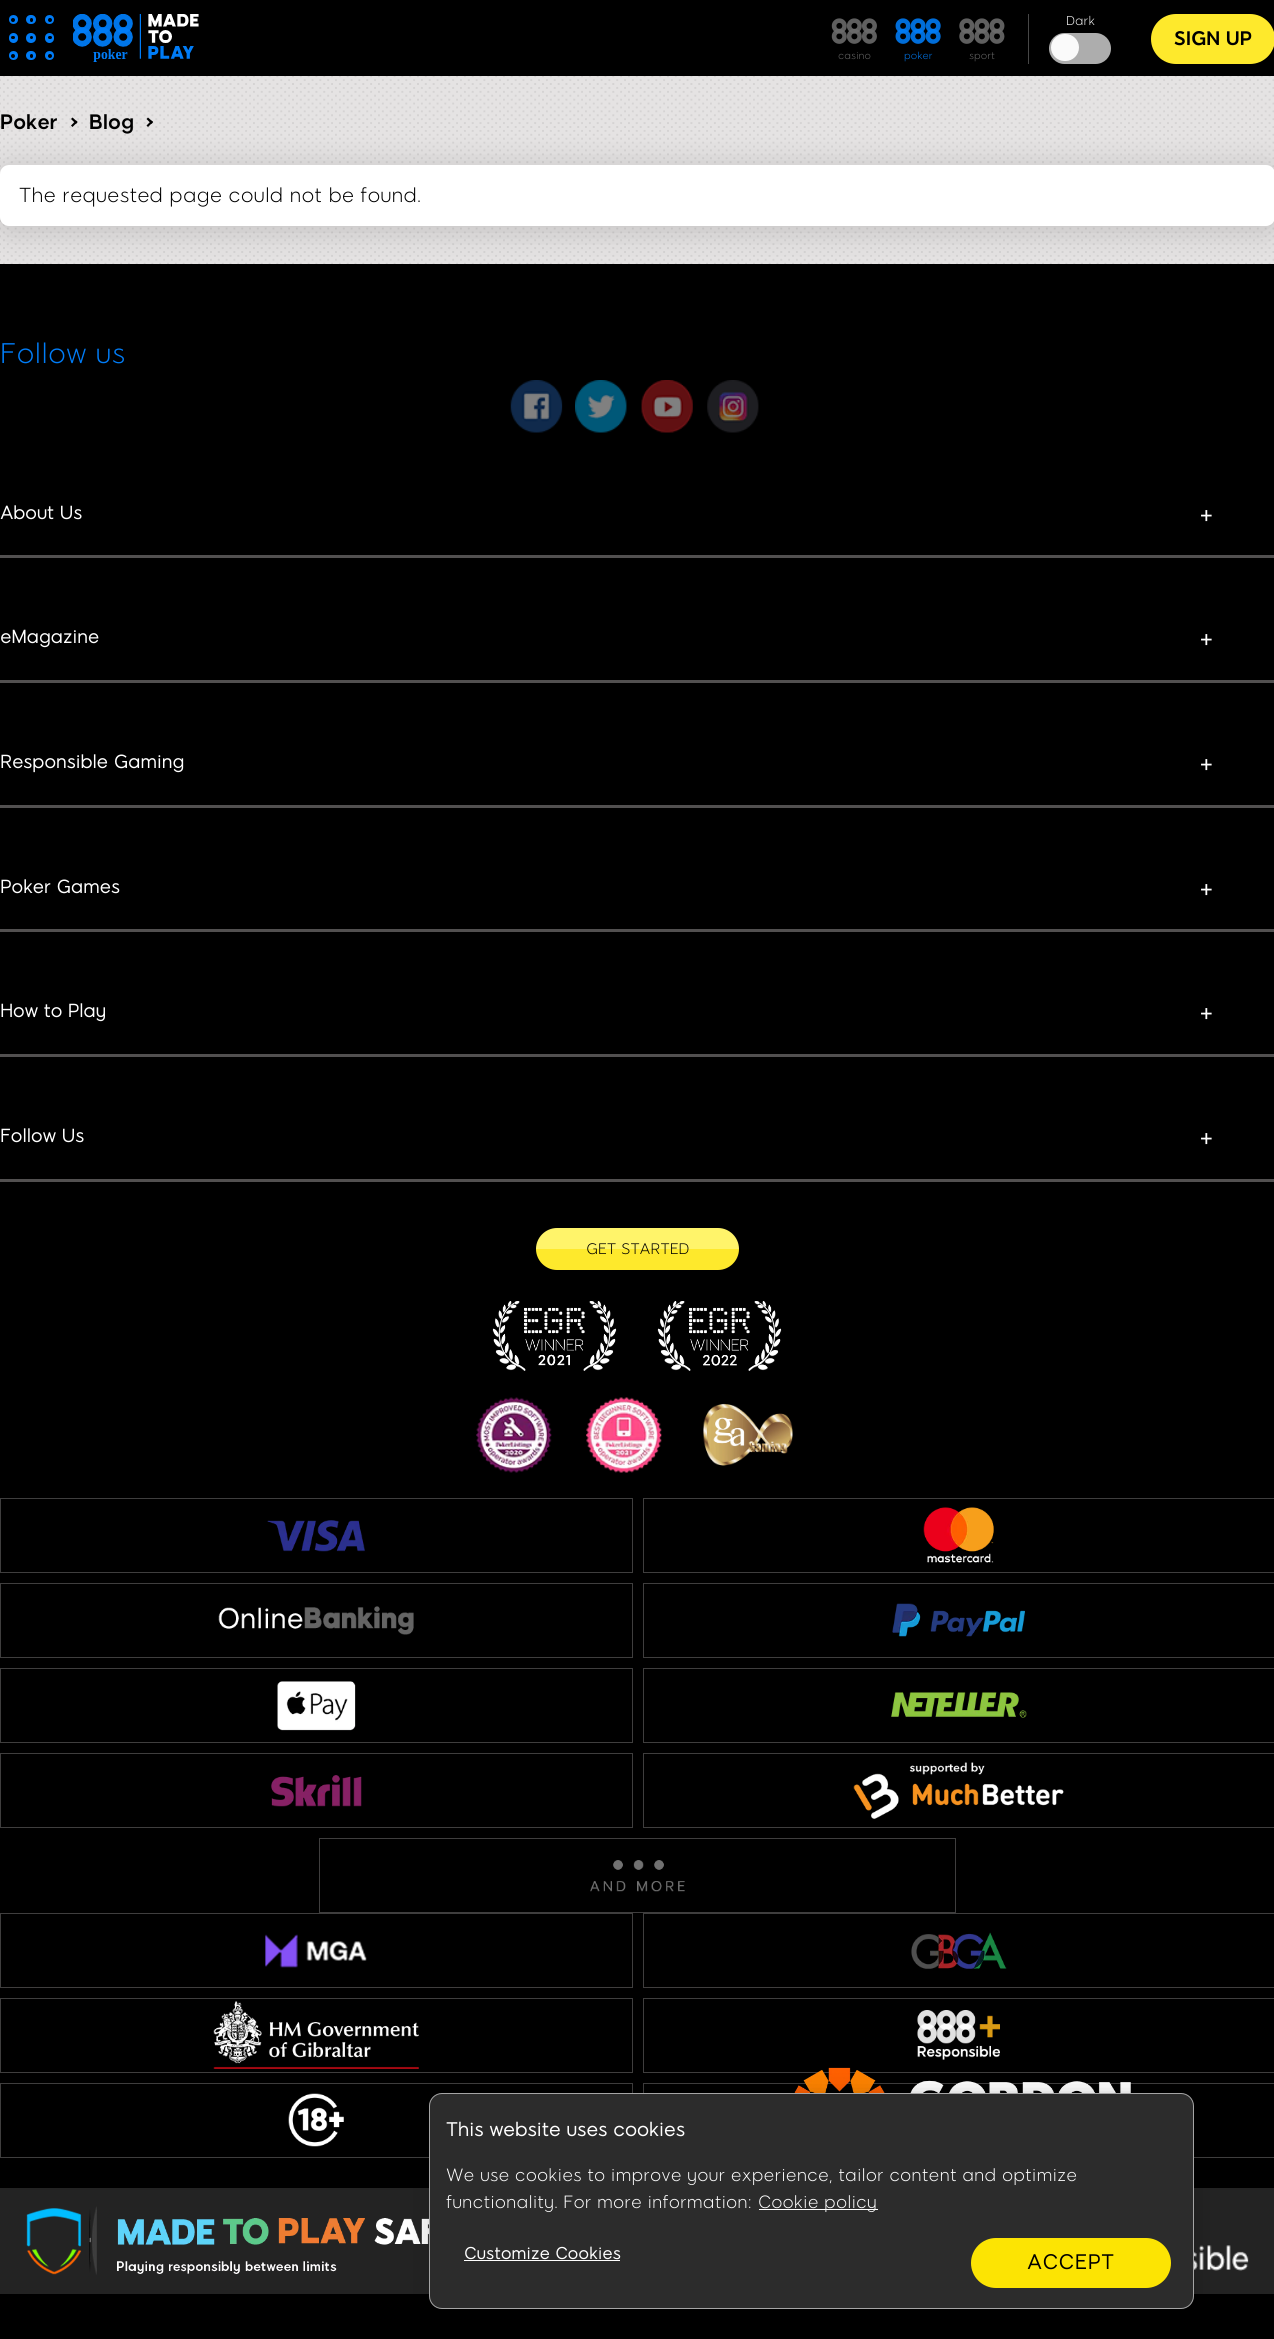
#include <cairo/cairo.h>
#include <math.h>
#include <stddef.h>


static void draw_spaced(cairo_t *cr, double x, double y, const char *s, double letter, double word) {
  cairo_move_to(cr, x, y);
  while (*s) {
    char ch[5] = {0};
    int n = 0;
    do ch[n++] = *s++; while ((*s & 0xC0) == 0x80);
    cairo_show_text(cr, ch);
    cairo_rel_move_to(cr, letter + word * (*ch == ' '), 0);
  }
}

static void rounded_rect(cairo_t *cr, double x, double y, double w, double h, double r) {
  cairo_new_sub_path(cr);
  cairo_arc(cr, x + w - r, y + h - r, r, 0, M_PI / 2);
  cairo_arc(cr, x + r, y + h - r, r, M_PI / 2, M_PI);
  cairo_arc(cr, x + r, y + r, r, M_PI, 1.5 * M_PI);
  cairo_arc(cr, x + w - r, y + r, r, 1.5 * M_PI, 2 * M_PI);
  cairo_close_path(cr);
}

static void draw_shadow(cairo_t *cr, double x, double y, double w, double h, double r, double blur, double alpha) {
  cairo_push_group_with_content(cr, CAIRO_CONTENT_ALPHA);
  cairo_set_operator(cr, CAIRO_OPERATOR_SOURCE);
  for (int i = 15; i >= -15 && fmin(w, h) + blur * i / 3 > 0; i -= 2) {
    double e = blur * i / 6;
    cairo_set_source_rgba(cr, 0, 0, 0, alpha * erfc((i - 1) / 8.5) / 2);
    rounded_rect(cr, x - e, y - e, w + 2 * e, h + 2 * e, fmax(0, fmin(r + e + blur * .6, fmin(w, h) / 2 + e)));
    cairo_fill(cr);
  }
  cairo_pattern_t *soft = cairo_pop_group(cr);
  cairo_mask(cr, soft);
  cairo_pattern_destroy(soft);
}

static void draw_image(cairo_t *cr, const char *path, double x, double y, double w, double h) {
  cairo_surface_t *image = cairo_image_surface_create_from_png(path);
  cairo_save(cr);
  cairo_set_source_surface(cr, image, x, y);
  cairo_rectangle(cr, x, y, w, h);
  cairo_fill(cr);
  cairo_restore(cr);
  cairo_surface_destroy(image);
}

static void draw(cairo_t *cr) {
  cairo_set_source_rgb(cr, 229 / 255.0, 227 / 255.0, 227 / 255.0);
  cairo_paint(cr);
  draw_image(cr, "images/1.png", 0, 76, 1274, 188);
  cairo_set_source_rgb(cr, 0, 0, 0);
  cairo_rectangle(cr, 0, 0, 1274, 76);
  cairo_fill(cr);
  cairo_set_source_rgb(cr, 0, 124 / 255.0, 247 / 255.0);
  cairo_arc(cr, 13.5, 19.5, 4.5, 0, 2 * M_PI);
  cairo_fill(cr);
  cairo_set_source_rgb(cr, 0, 0, 0);
  cairo_arc(cr, 13, 20, 2, 0, 2 * M_PI);
  cairo_fill(cr);
  cairo_set_source_rgb(cr, 0, 124 / 255.0, 247 / 255.0);
  rounded_rect(cr, 26, 15, 10, 9, 4.5);
  cairo_fill(cr);
  cairo_set_source_rgb(cr, 0, 0, 0);
  rounded_rect(cr, 30, 18, 3, 4, 1.5);
  cairo_fill(cr);
  cairo_set_source_rgb(cr, 0, 124 / 255.0, 247 / 255.0);
  cairo_arc(cr, 49.5, 19.5, 4.5, 0, 2 * M_PI);
  cairo_fill(cr);
  cairo_set_source_rgb(cr, 0, 0, 0);
  cairo_arc(cr, 50, 20, 2, 0, 2 * M_PI);
  cairo_fill(cr);
  cairo_set_source_rgb(cr, 0, 124 / 255.0, 247 / 255.0);
  rounded_rect(cr, 9, 33, 9, 10, 4.5);
  cairo_fill(cr);
  cairo_set_source_rgb(cr, 0, 0, 0);
  rounded_rect(cr, 11, 36, 4, 3, 1.5);
  cairo_fill(cr);
  cairo_set_source_rgb(cr, 0, 124 / 255.0, 247 / 255.0);
  cairo_arc(cr, 31, 38, 5, 0, 2 * M_PI);
  cairo_fill(cr);
  cairo_set_source_rgb(cr, 0, 0, 0);
  cairo_arc(cr, 31.5, 37.5, 1.5, 0, 2 * M_PI);
  cairo_fill(cr);
  cairo_set_source_rgb(cr, 0, 124 / 255.0, 247 / 255.0);
  rounded_rect(cr, 45, 33, 9, 10, 4.5);
  cairo_fill(cr);
  cairo_set_source_rgb(cr, 0, 0, 0);
  rounded_rect(cr, 48, 36, 4, 3, 1.5);
  cairo_fill(cr);
  cairo_set_source_rgb(cr, 0, 124 / 255.0, 247 / 255.0);
  cairo_arc(cr, 13.5, 55.5, 4.5, 0, 2 * M_PI);
  cairo_fill(cr);
  cairo_set_source_rgb(cr, 0, 0, 0);
  cairo_arc(cr, 13, 56, 2, 0, 2 * M_PI);
  cairo_fill(cr);
  cairo_set_source_rgb(cr, 0, 124 / 255.0, 247 / 255.0);
  rounded_rect(cr, 26, 51, 10, 9, 4.5);
  cairo_fill(cr);
  cairo_set_source_rgb(cr, 0, 0, 0);
  rounded_rect(cr, 30, 54, 3, 4, 1.5);
  cairo_fill(cr);
  cairo_set_source_rgb(cr, 0, 124 / 255.0, 247 / 255.0);
  cairo_arc(cr, 49.5, 55.5, 4.5, 0, 2 * M_PI);
  cairo_fill(cr);
  cairo_set_source_rgb(cr, 0, 0, 0);
  cairo_arc(cr, 50, 56, 2, 0, 2 * M_PI);
  cairo_fill(cr);
  draw_image(cr, "images/2.png", 73, 14, 126, 48);
  cairo_set_source_rgb(cr, 173 / 255.0, 173 / 255.0, 173 / 255.0);
  rounded_rect(cr, 1049, 33, 62, 31, 15.5);
  cairo_fill(cr);
  cairo_set_source_rgb(cr, 250 / 255.0, 250 / 255.0, 250 / 255.0);
  rounded_rect(cr, 1051, 34, 28, 27, 13.5);
  cairo_fill(cr);
  cairo_set_source_rgb(cr, 254 / 255.0, 233 / 255.0, 44 / 255.0);
  rounded_rect(cr, 1151, 14, 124, 50, 25);
  cairo_fill(cr);
  cairo_set_source_rgb(cr, 71 / 255.0, 71 / 255.0, 71 / 255.0);
  cairo_rectangle(cr, 1028, 14, 1, 50);
  cairo_fill(cr);
  draw_image(cr, "images/3.png", 831, 18, 46, 26);
  draw_image(cr, "images/4.png", 895, 18, 46, 26);
  draw_image(cr, "images/5.png", 959, 18, 46, 26);
  cairo_set_source_rgb(cr, 0, 0, 0);
  cairo_rectangle(cr, 0, 264, 1274, 2075);
  cairo_fill(cr);
  cairo_set_source_rgb(cr, 0, 0, 0);
  draw_shadow(cr, 0, 169, 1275, 61, 9, 17.5, 0.16);
  cairo_set_source_rgb(cr, 0, 0, 0);
  cairo_new_path(cr);
  cairo_move_to(cr, 72.5, 117.5);
  cairo_line_to(cr, 77.5, 122);
  cairo_line_to(cr, 76, 124);
  cairo_line_to(cr, 71, 119);
  cairo_close_path(cr);
  cairo_fill(cr);
  cairo_new_path(cr);
  cairo_move_to(cr, 76, 120.5);
  cairo_line_to(cr, 77.5, 122);
  cairo_line_to(cr, 72.5, 127);
  cairo_line_to(cr, 71, 125.5);
  cairo_close_path(cr);
  cairo_fill(cr);
  cairo_new_path(cr);
  cairo_move_to(cr, 148, 117.5);
  cairo_line_to(cr, 153, 122);
  cairo_line_to(cr, 151.5, 124);
  cairo_line_to(cr, 146.5, 119);
  cairo_close_path(cr);
  cairo_fill(cr);
  cairo_new_path(cr);
  cairo_move_to(cr, 151.5, 120.5);
  cairo_line_to(cr, 153, 122);
  cairo_line_to(cr, 148, 127);
  cairo_line_to(cr, 146.5, 125.5);
  cairo_close_path(cr);
  cairo_fill(cr);
  cairo_set_source_rgb(cr, 1, 1, 1);
  rounded_rect(cr, 0, 165, 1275, 61, 9);
  cairo_fill(cr);
  draw_image(cr, "images/6.png", 510, 380, 53, 53);
  draw_image(cr, "images/7.png", 575, 380, 52, 53);
  draw_image(cr, "images/8.png", 641, 380, 52, 53);
  draw_image(cr, "images/9.png", 707, 380, 52, 53);
  cairo_set_source_rgb(cr, 82 / 255.0, 80 / 255.0, 80 / 255.0);
  cairo_rectangle(cr, 0, 555, 1274, 3);
  cairo_fill(cr);
  cairo_rectangle(cr, 0, 680, 1274, 3);
  cairo_fill(cr);
  cairo_rectangle(cr, 0, 805, 1274, 3);
  cairo_fill(cr);
  cairo_rectangle(cr, 0, 929, 1274, 3);
  cairo_fill(cr);
  cairo_rectangle(cr, 0, 1054, 1274, 3);
  cairo_fill(cr);
  cairo_rectangle(cr, 0, 1179, 1274, 3);
  cairo_fill(cr);
  cairo_set_source_rgb(cr, 1, 244 / 255.0, 106 / 255.0);
  cairo_new_path(cr);
  cairo_move_to(cr, 557, 1228);
  cairo_line_to(cr, 718, 1228);
  cairo_curve_to(cr, 729.5, 1228, 739, 1237.5, 739, 1249);
  cairo_line_to(cr, 536, 1249);
  cairo_curve_to(cr, 536, 1237.5, 545.5, 1228, 557, 1228);
  cairo_close_path(cr);
  cairo_fill(cr);
  cairo_set_source_rgb(cr, 254 / 255.0, 233 / 255.0, 44 / 255.0);
  cairo_new_path(cr);
  cairo_move_to(cr, 536, 1249);
  cairo_line_to(cr, 739, 1249);
  cairo_curve_to(cr, 739, 1260.5, 729.5, 1270, 718, 1270);
  cairo_line_to(cr, 557, 1270);
  cairo_curve_to(cr, 545.5, 1270, 536, 1260.5, 536, 1249);
  cairo_close_path(cr);
  cairo_fill(cr);
  draw_image(cr, "images/10.png", 492, 1301, 125, 70);
  draw_image(cr, "images/11.png", 657, 1301, 125, 70);
  draw_image(cr, "images/12.png", 476, 1397, 76, 76);
  draw_image(cr, "images/13.png", 586, 1397, 76, 76);
  draw_image(cr, "images/14.png", 703, 1403, 90, 63);
  cairo_rectangle(cr, 0.5, 1498.5, 632, 74);
  cairo_set_source_rgb(cr, 63 / 255.0, 62 / 255.0, 62 / 255.0);
  cairo_set_line_width(cr, 1);
  cairo_stroke(cr);
  draw_image(cr, "images/15.png", 267, 1520, 98, 32);
  cairo_rectangle(cr, 643.5, 1498.5, 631, 74);
  cairo_stroke(cr);
  draw_image(cr, "images/16.png", 923, 1507, 71, 56);
  cairo_rectangle(cr, 0.5, 1583.5, 632, 74);
  cairo_stroke(cr);
  draw_image(cr, "images/17.png", 218, 1606, 196, 29);
  cairo_rectangle(cr, 643.5, 1583.5, 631, 74);
  cairo_stroke(cr);
  draw_image(cr, "images/18.png", 892, 1603, 133, 34);
  cairo_rectangle(cr, 0.5, 1668.5, 632, 74);
  cairo_stroke(cr);
  draw_image(cr, "images/19.png", 277, 1681, 79, 50);
  cairo_rectangle(cr, 643.5, 1668.5, 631, 74);
  cairo_stroke(cr);
  draw_image(cr, "images/20.png", 891, 1692, 136, 26);
  cairo_rectangle(cr, 0.5, 1753.5, 632, 74);
  cairo_stroke(cr);
  draw_image(cr, "images/21.png", 271, 1775, 91, 32);
  cairo_rectangle(cr, 643.5, 1753.5, 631, 74);
  cairo_stroke(cr);
  draw_image(cr, "images/22.png", 853, 1762, 211, 57);
  cairo_rectangle(cr, 319.5, 1838.5, 636, 74);
  cairo_stroke(cr);
  draw_image(cr, "images/23.png", 590, 1860, 95, 32);
  cairo_rectangle(cr, 0.5, 1913.5, 632, 74);
  cairo_stroke(cr);
  draw_image(cr, "images/24.png", 265, 1934, 102, 34);
  cairo_rectangle(cr, 643.5, 1913.5, 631, 74);
  cairo_stroke(cr);
  draw_image(cr, "images/25.png", 911, 1932, 96, 37);
  cairo_rectangle(cr, 0.5, 1998.5, 632, 74);
  cairo_stroke(cr);
  draw_image(cr, "images/26.png", 213, 2001, 206, 68);
  cairo_rectangle(cr, 643.5, 1998.5, 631, 74);
  cairo_stroke(cr);
  draw_image(cr, "images/27.png", 917, 2010, 83, 50);
  cairo_rectangle(cr, 0.5, 2083.5, 632, 74);
  cairo_stroke(cr);
  draw_image(cr, "images/28.png", 288, 2093, 56, 54);
  cairo_rectangle(cr, 643.5, 2083.5, 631, 74);
  cairo_stroke(cr);
  draw_image(cr, "images/29.png", 794, 2067, 337, 26);
  cairo_set_source_rgb(cr, 35 / 255.0, 35 / 255.0, 35 / 255.0);
  cairo_rectangle(cr, 0, 2188, 1274, 106);
  cairo_fill(cr);
  draw_image(cr, "images/30.png", 26, 2206, 403, 69);
  draw_image(cr, "images/31.png", 1194, 2245, 55, 26);
  cairo_set_source_rgb(cr, 0, 0, 0);
  draw_shadow(cr, 429, 2093, 765, 216, 13, 11, 0.2);
  cairo_set_source_rgb(cr, 44 / 255.0, 44 / 255.0, 44 / 255.0);
  rounded_rect(cr, 429.5, 2093.5, 764, 215, 12.5);
  cairo_fill_preserve(cr);
  cairo_set_source_rgb(cr, 165 / 255.0, 165 / 255.0, 165 / 255.0);
  cairo_stroke(cr);
  cairo_set_source_rgb(cr, 1, 1, 1);
  cairo_rectangle(cr, 759, 2209, 119, 1);
  cairo_fill(cr);
  cairo_rectangle(cr, 464, 2260, 156, 1);
  cairo_fill(cr);
  cairo_set_source_rgb(cr, 252 / 255.0, 228 / 255.0, 3 / 255.0);
  rounded_rect(cr, 972.5, 2239.5, 197, 47, 23.5);
  cairo_fill_preserve(cr);
  cairo_set_line_width(cr, 3);
  cairo_stroke(cr);
  cairo_select_font_face(cr, "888", CAIRO_FONT_SLANT_NORMAL, CAIRO_FONT_WEIGHT_NORMAL);
  cairo_set_font_size(cr, 12.5);
  cairo_set_source_rgb(cr, 1, 1, 1);
  cairo_move_to(cr, 1066, 25);
  cairo_show_text(cr, "Dark");
  cairo_select_font_face(cr, "888", CAIRO_FONT_SLANT_NORMAL, CAIRO_FONT_WEIGHT_BOLD);
  cairo_set_font_size(cr, 18.75);
  cairo_set_source_rgb(cr, 0, 0, 0);
  cairo_move_to(cr, 1174, 45);
  cairo_show_text(cr, "SIGN UP");
  cairo_select_font_face(cr, "888", CAIRO_FONT_SLANT_NORMAL, CAIRO_FONT_WEIGHT_NORMAL);
  cairo_set_font_size(cr, 10);
  cairo_set_source_rgb(cr, 108 / 255.0, 108 / 255.0, 108 / 255.0);
  cairo_move_to(cr, 838, 59);
  cairo_show_text(cr, "casino");
  cairo_set_source_rgb(cr, 0, 124 / 255.0, 247 / 255.0);
  cairo_move_to(cr, 904, 59);
  cairo_show_text(cr, "poker");
  cairo_set_source_rgb(cr, 108 / 255.0, 108 / 255.0, 108 / 255.0);
  cairo_move_to(cr, 969, 59);
  cairo_show_text(cr, "sport");
  cairo_select_font_face(cr, "888", CAIRO_FONT_SLANT_NORMAL, CAIRO_FONT_WEIGHT_BOLD);
  cairo_set_font_size(cr, 20);
  cairo_set_source_rgb(cr, 0, 0, 0);
  cairo_move_to(cr, 0, 129);
  cairo_show_text(cr, "Poker");
  cairo_move_to(cr, 89, 129);
  cairo_show_text(cr, "Blog");
  cairo_select_font_face(cr, "888", CAIRO_FONT_SLANT_NORMAL, CAIRO_FONT_WEIGHT_NORMAL);
  cairo_move_to(cr, 19, 202);
  cairo_show_text(cr, "The requested page could not be found.");
  cairo_set_font_size(cr, 28);
  cairo_set_source_rgb(cr, 0, 124 / 255.0, 247 / 255.0);
  cairo_move_to(cr, 0, 363);
  cairo_show_text(cr, "Follow us");
  cairo_select_font_face(cr, "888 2", CAIRO_FONT_SLANT_NORMAL, CAIRO_FONT_WEIGHT_BOLD);
  cairo_set_font_size(cr, 18);
  cairo_set_source_rgb(cr, 1, 1, 1);
  cairo_move_to(cr, 0, 519);
  cairo_show_text(cr, "About Us");
  cairo_set_font_size(cr, 23);
  cairo_move_to(cr, 1199, 524);
  cairo_show_text(cr, "+");
  cairo_set_font_size(cr, 18);
  cairo_move_to(cr, 0, 643);
  cairo_show_text(cr, "eMagazine");
  cairo_set_font_size(cr, 23);
  cairo_move_to(cr, 1199, 648);
  cairo_show_text(cr, "+");
  cairo_set_font_size(cr, 18);
  cairo_move_to(cr, 0, 768);
  cairo_show_text(cr, "Responsible Gaming");
  cairo_set_font_size(cr, 23);
  cairo_move_to(cr, 1199, 773);
  cairo_show_text(cr, "+");
  cairo_set_font_size(cr, 18);
  cairo_move_to(cr, 0, 893);
  cairo_show_text(cr, "Poker Games");
  cairo_set_font_size(cr, 23);
  cairo_move_to(cr, 1199, 898);
  cairo_show_text(cr, "+");
  cairo_set_font_size(cr, 18);
  cairo_move_to(cr, 0, 1017);
  cairo_show_text(cr, "How to Play");
  cairo_set_font_size(cr, 23);
  cairo_move_to(cr, 1199, 1022);
  cairo_show_text(cr, "+");
  cairo_set_font_size(cr, 18);
  cairo_move_to(cr, 0, 1142);
  cairo_show_text(cr, "Follow Us");
  cairo_set_font_size(cr, 23);
  cairo_move_to(cr, 1199, 1147);
  cairo_show_text(cr, "+");
  cairo_select_font_face(cr, "888", CAIRO_FONT_SLANT_NORMAL, CAIRO_FONT_WEIGHT_NORMAL);
  cairo_set_font_size(cr, 15);
  cairo_set_source_rgb(cr, 0, 0, 0);
  cairo_move_to(cr, 586, 1254);
  cairo_show_text(cr, "GET STARTED");
  cairo_select_font_face(cr, "888 2", CAIRO_FONT_SLANT_NORMAL, CAIRO_FONT_WEIGHT_BOLD);
  cairo_set_font_size(cr, 18.75);
  cairo_set_source_rgb(cr, 1, 1, 1);
  cairo_move_to(cr, 446, 2136);
  cairo_show_text(cr, "This website uses cookies");
  cairo_select_font_face(cr, "888", CAIRO_FONT_SLANT_NORMAL, CAIRO_FONT_WEIGHT_NORMAL);
  cairo_set_font_size(cr, 17.5);
  cairo_move_to(cr, 446, 2181);
  cairo_show_text(cr, "We use cookies to improve your experience, tailor content and optimize");
  cairo_move_to(cr, 446, 2208);
  cairo_show_text(cr, "functionality. For more information:");
  cairo_move_to(cr, 758, 2208);
  cairo_show_text(cr, "Cookie policy");
  cairo_select_font_face(cr, "888 2", CAIRO_FONT_SLANT_NORMAL, CAIRO_FONT_WEIGHT_BOLD);
  cairo_set_font_size(cr, 16.25);
  draw_spaced(cr, 464, 2259, "Customize Cookies", 0.2, 0);
  cairo_set_font_size(cr, 20);
  cairo_set_source_rgb(cr, 0, 0, 0);
  draw_spaced(cr, 1027, 2269, "ACCEPT", 1, 0);
}

int main(void) {
  cairo_surface_t *surface = cairo_image_surface_create(CAIRO_FORMAT_RGB24, 1274, 2339);
  cairo_t *cr = cairo_create(surface);
  cairo_font_options_t *options = cairo_font_options_create();
  cairo_font_options_set_hint_metrics(options, CAIRO_HINT_METRICS_OFF);
  cairo_font_options_set_hint_style(options, CAIRO_HINT_STYLE_NONE);
  cairo_set_font_options(cr, options);
  cairo_set_miter_limit(cr, 4);
  draw(cr);
  cairo_surface_write_to_png(surface, "out.png");
  cairo_font_options_destroy(options);
  cairo_destroy(cr);
  cairo_surface_destroy(surface);
  return 0;
}
